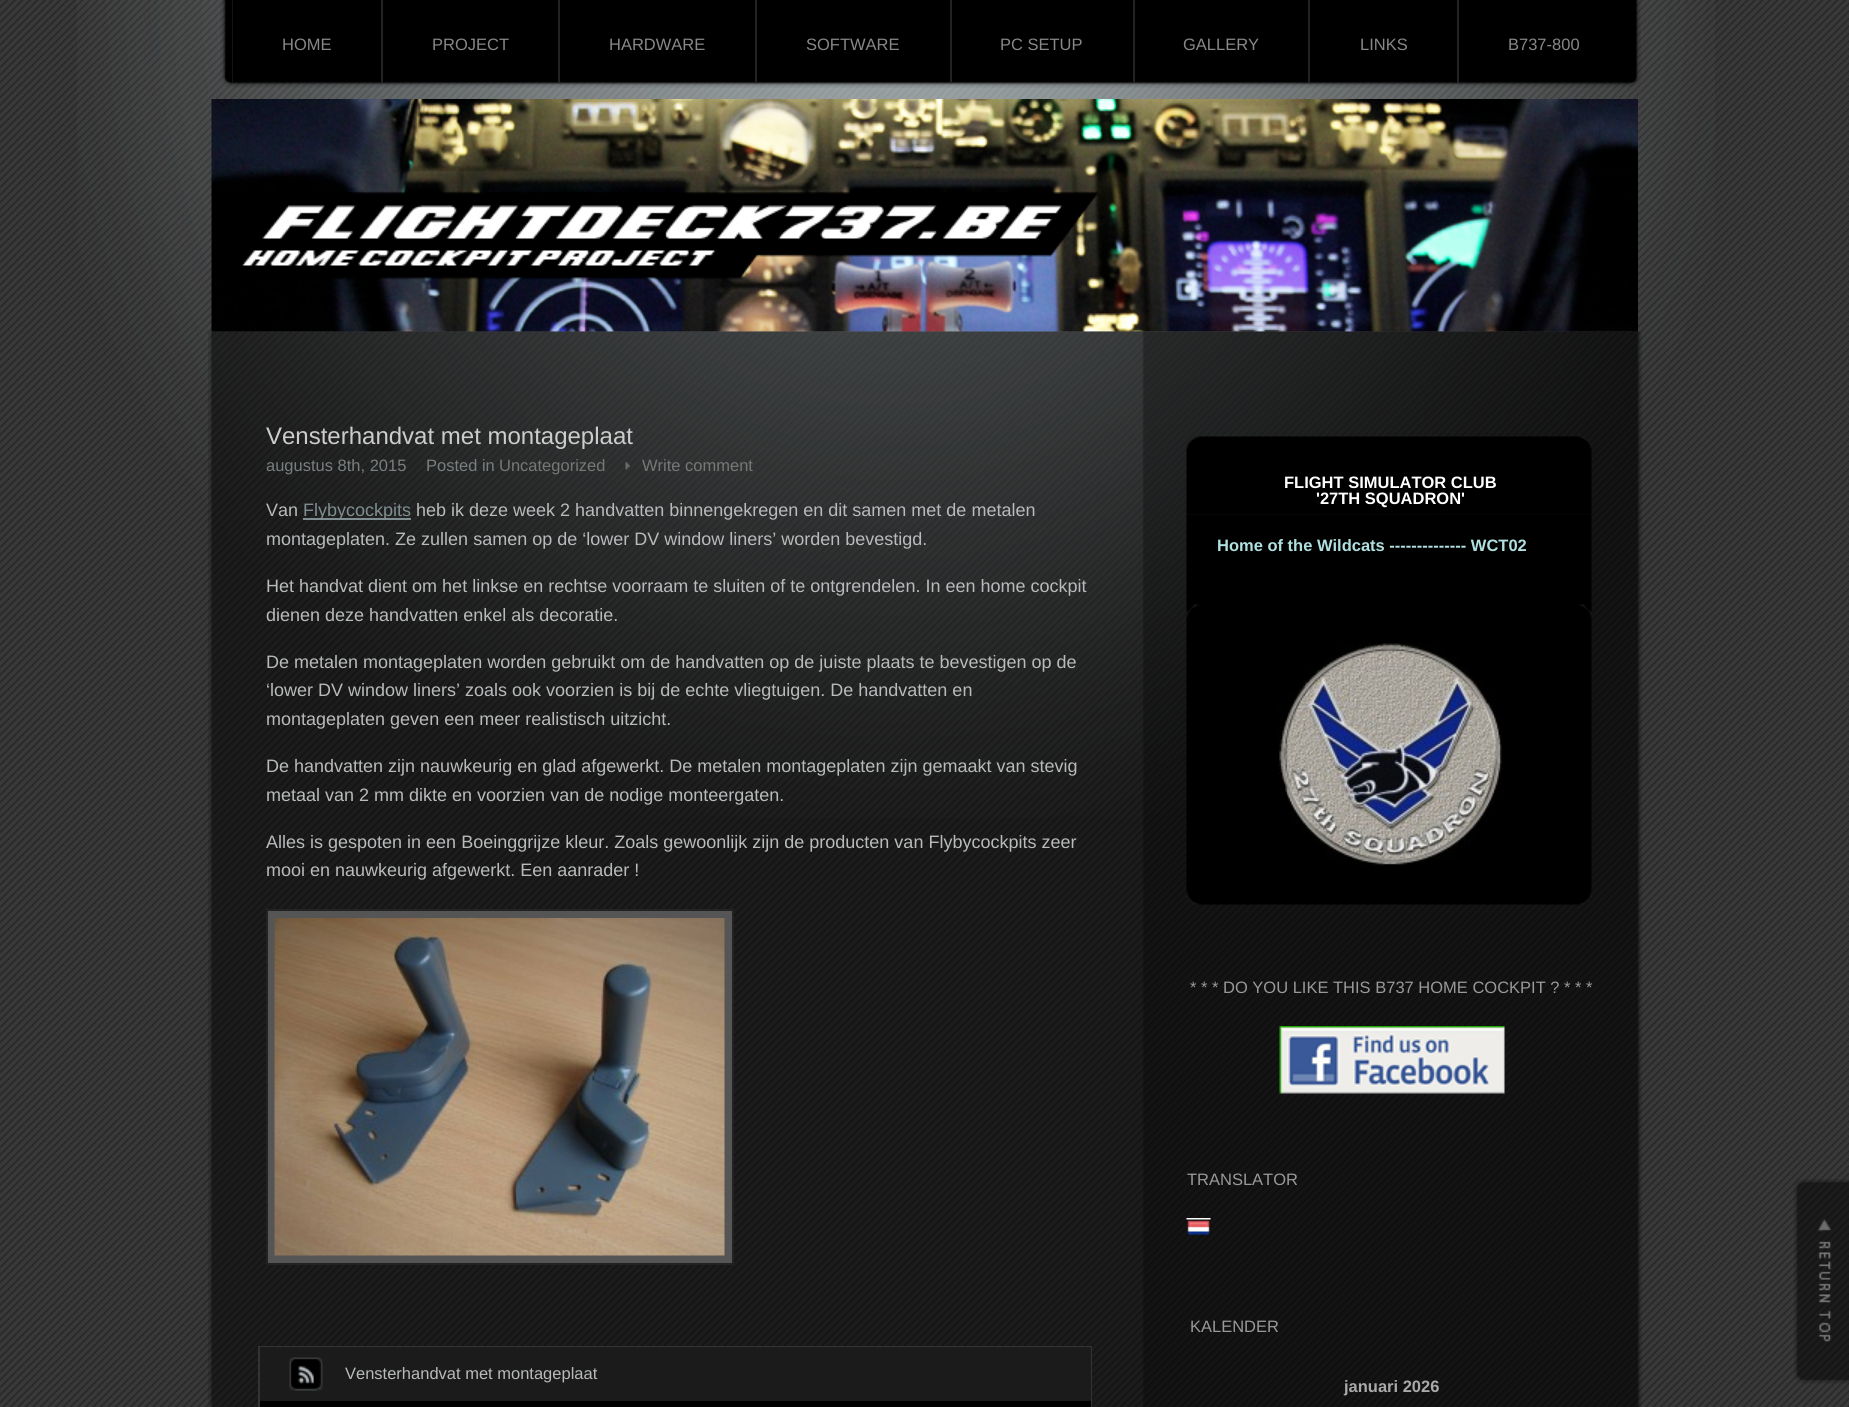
#include <cairo/cairo.h>
#include <math.h>
#include <stddef.h>


static void draw_image(cairo_t *cr, const char *path, double x, double y, double w, double h) {
  cairo_surface_t *image = cairo_image_surface_create_from_png(path);
  cairo_save(cr);
  cairo_set_source_surface(cr, image, x, y);
  cairo_rectangle(cr, x, y, w, h);
  cairo_fill(cr);
  cairo_restore(cr);
  cairo_surface_destroy(image);
}

static void draw(cairo_t *cr) {
  cairo_set_source_rgb(cr, 1, 1, 1);
  cairo_paint(cr);
  draw_image(cr, "images/1.png", 0, 0, 1849, 1407);
  draw_image(cr, "images/2.png", 77, 0, 1638, 818);
  draw_image(cr, "images/4.png", 232, 0, 1397, 88);
  draw_image(cr, "images/3.png", 220, 0, 13, 87);
  cairo_set_source_rgb(cr, 34 / 255.0, 34 / 255.0, 34 / 255.0);
  cairo_rectangle(cr, 381, 0, 2, 83);
  cairo_fill(cr);
  cairo_rectangle(cr, 558, 0, 2, 83);
  cairo_fill(cr);
  cairo_rectangle(cr, 755, 0, 2, 83);
  cairo_fill(cr);
  cairo_rectangle(cr, 950, 0, 2, 83);
  cairo_fill(cr);
  cairo_rectangle(cr, 1133, 0, 2, 83);
  cairo_fill(cr);
  cairo_rectangle(cr, 1308, 0, 2, 83);
  cairo_fill(cr);
  cairo_rectangle(cr, 1457, 0, 2, 83);
  cairo_fill(cr);
  draw_image(cr, "images/5.png", 1629, 0, 12, 87);
  draw_image(cr, "images/6.png", 211, 99, 1427, 233);
  draw_image(cr, "images/7.png", 208, 331, 1434, 1076);
  draw_image(cr, "images/8.png", 625, 462, 5, 8);
  cairo_set_source_rgb(cr, 127 / 255.0, 142 / 255.0, 145 / 255.0);
  cairo_rectangle(cr, 303, 518, 108, 2);
  cairo_fill(cr);
  cairo_set_source_rgb(cr, 85 / 255.0, 85 / 255.0, 85 / 255.0);
  cairo_rectangle(cr, 267, 910, 466, 354);
  cairo_fill_preserve(cr);
  cairo_set_source_rgb(cr, 34 / 255.0, 34 / 255.0, 34 / 255.0);
  cairo_stroke(cr);
  draw_image(cr, "images/9.png", 274, 918, 451, 338);
  cairo_rectangle(cr, 259, 1347, 832, 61);
  cairo_set_source_rgb(cr, 51 / 255.0, 51 / 255.0, 51 / 255.0);
  cairo_stroke(cr);
  cairo_set_source_rgb(cr, 27 / 255.0, 27 / 255.0, 27 / 255.0);
  cairo_rectangle(cr, 260, 1347, 831, 54);
  cairo_fill(cr);
  draw_image(cr, "images/10.png", 289, 1357, 34, 34);
  cairo_set_source_rgb(cr, 0, 0, 0);
  cairo_rectangle(cr, 260, 1401, 831, 6);
  cairo_fill(cr);
  draw_image(cr, "images/11.png", 1186, 436, 406, 79);
  draw_image(cr, "images/12.png", 1186, 514, 406, 391);
  draw_image(cr, "images/13.png", 1278, 643, 225, 223);
  draw_image(cr, "images/14.png", 1279, 1026, 226, 68);
  draw_image(cr, "images/15.png", 1186, 1218, 25, 17);
  draw_image(cr, "images/16.png", 1794, 1179, 55, 205);
  cairo_select_font_face(cr, "Liberation Sans", CAIRO_FONT_SLANT_NORMAL, CAIRO_FONT_WEIGHT_NORMAL);
  cairo_set_font_size(cr, 16.5);
  cairo_set_source_rgb(cr, 136 / 255.0, 136 / 255.0, 136 / 255.0);
  cairo_move_to(cr, 282, 50);
  cairo_show_text(cr, "HOME");
  cairo_move_to(cr, 432, 50);
  cairo_show_text(cr, "PROJECT");
  cairo_move_to(cr, 609, 50);
  cairo_show_text(cr, "HARDWARE");
  cairo_move_to(cr, 806, 50);
  cairo_show_text(cr, "SOFTWARE");
  cairo_move_to(cr, 1000, 50);
  cairo_show_text(cr, "PC SETUP");
  cairo_move_to(cr, 1183, 50);
  cairo_show_text(cr, "GALLERY");
  cairo_move_to(cr, 1360, 50);
  cairo_show_text(cr, "LINKS");
  cairo_move_to(cr, 1508, 50);
  cairo_show_text(cr, "B737-800");
  cairo_set_font_size(cr, 24);
  cairo_set_source_rgb(cr, 204 / 255.0, 204 / 255.0, 204 / 255.0);
  cairo_move_to(cr, 266, 444);
  cairo_show_text(cr, "Vensterhandvat met montageplaat");
  cairo_set_font_size(cr, 16.5);
  cairo_set_source_rgb(cr, 121 / 255.0, 127 / 255.0, 128 / 255.0);
  cairo_move_to(cr, 266, 471);
  cairo_show_text(cr, "augustus 8th, 2015");
  cairo_move_to(cr, 426, 471);
  cairo_show_text(cr, "Posted in");
  cairo_set_source_rgb(cr, 119 / 255.0, 119 / 255.0, 119 / 255.0);
  cairo_move_to(cr, 499, 471);
  cairo_show_text(cr, "Uncategorized");
  cairo_move_to(cr, 642, 471);
  cairo_show_text(cr, "Write comment");
  cairo_set_font_size(cr, 18);
  cairo_set_source_rgb(cr, 184 / 255.0, 186 / 255.0, 187 / 255.0);
  cairo_move_to(cr, 266, 516);
  cairo_show_text(cr, "Van");
  cairo_set_source_rgb(cr, 127 / 255.0, 142 / 255.0, 145 / 255.0);
  cairo_move_to(cr, 303, 516);
  cairo_show_text(cr, "Flybycockpits");
  cairo_set_source_rgb(cr, 184 / 255.0, 186 / 255.0, 187 / 255.0);
  cairo_move_to(cr, 416, 516);
  cairo_show_text(cr, "heb ik deze week 2 handvatten binnengekregen en dit samen met de metalen");
  cairo_move_to(cr, 266, 545);
  cairo_show_text(cr, "montageplaten. Ze zullen samen op de ‘lower DV window liners’ worden bevestigd.");
  cairo_move_to(cr, 266, 592);
  cairo_show_text(cr, "Het handvat dient om het linkse en rechtse voorraam te sluiten of te ontgrendelen. In een home cockpit");
  cairo_move_to(cr, 266, 621);
  cairo_show_text(cr, "dienen deze handvatten enkel als decoratie.");
  cairo_move_to(cr, 266, 668);
  cairo_show_text(cr, "De metalen montageplaten worden gebruikt om de handvatten op de juiste plaats te bevestigen op de");
  cairo_move_to(cr, 266, 696);
  cairo_show_text(cr, "‘lower DV window liners’ zoals ook voorzien is bij de echte vliegtuigen. De handvatten en");
  cairo_move_to(cr, 266, 725);
  cairo_show_text(cr, "montageplaten geven een meer realistisch uitzicht.");
  cairo_move_to(cr, 266, 772);
  cairo_show_text(cr, "De handvatten zijn nauwkeurig en glad afgewerkt. De metalen montageplaten zijn gemaakt van stevig");
  cairo_move_to(cr, 266, 801);
  cairo_show_text(cr, "metaal van 2 mm dikte en voorzien van de nodige monteergaten.");
  cairo_move_to(cr, 266, 848);
  cairo_show_text(cr, "Alles is gespoten in een Boeinggrijze kleur. Zoals gewoonlijk zijn de producten van Flybycockpits zeer");
  cairo_move_to(cr, 266, 876);
  cairo_show_text(cr, "mooi en nauwkeurig afgewerkt. Een aanrader !");
  cairo_set_font_size(cr, 16.5);
  cairo_move_to(cr, 345, 1379);
  cairo_show_text(cr, "Vensterhandvat met montageplaat");
  cairo_select_font_face(cr, "Liberation Sans", CAIRO_FONT_SLANT_NORMAL, CAIRO_FONT_WEIGHT_BOLD);
  cairo_set_source_rgb(cr, 1, 1, 1);
  cairo_move_to(cr, 1284, 488);
  cairo_show_text(cr, "FLIGHT SIMULATOR CLUB");
  cairo_move_to(cr, 1316, 504);
  cairo_show_text(cr, "'27TH SQUADRON'");
  cairo_set_source_rgb(cr, 176 / 255.0, 224 / 255.0, 224 / 255.0);
  cairo_move_to(cr, 1217, 551);
  cairo_show_text(cr, "Home of the Wildcats -------------- WCT02");
  cairo_select_font_face(cr, "Liberation Sans", CAIRO_FONT_SLANT_NORMAL, CAIRO_FONT_WEIGHT_NORMAL);
  cairo_set_source_rgb(cr, 153 / 255.0, 153 / 255.0, 153 / 255.0);
  cairo_move_to(cr, 1190, 993);
  cairo_show_text(cr, "* * * DO YOU LIKE THIS B737 HOME COCKPIT ? * * *");
  cairo_move_to(cr, 1187, 1185);
  cairo_show_text(cr, "TRANSLATOR");
  cairo_move_to(cr, 1190, 1332);
  cairo_show_text(cr, "KALENDER");
  cairo_select_font_face(cr, "Liberation Sans", CAIRO_FONT_SLANT_NORMAL, CAIRO_FONT_WEIGHT_BOLD);
  cairo_set_source_rgb(cr, 170 / 255.0, 170 / 255.0, 170 / 255.0);
  cairo_move_to(cr, 1344, 1392);
  cairo_show_text(cr, "januari 2026");
}

int main(void) {
  cairo_surface_t *surface = cairo_image_surface_create(CAIRO_FORMAT_RGB24, 1849, 1407);
  cairo_t *cr = cairo_create(surface);
  cairo_font_options_t *options = cairo_font_options_create();
  cairo_font_options_set_hint_metrics(options, CAIRO_HINT_METRICS_OFF);
  cairo_font_options_set_hint_style(options, CAIRO_HINT_STYLE_NONE);
  cairo_set_font_options(cr, options);
  cairo_set_miter_limit(cr, 4);
  draw(cr);
  cairo_surface_write_to_png(surface, "out.png");
  cairo_font_options_destroy(options);
  cairo_destroy(cr);
  cairo_surface_destroy(surface);
  return 0;
}
